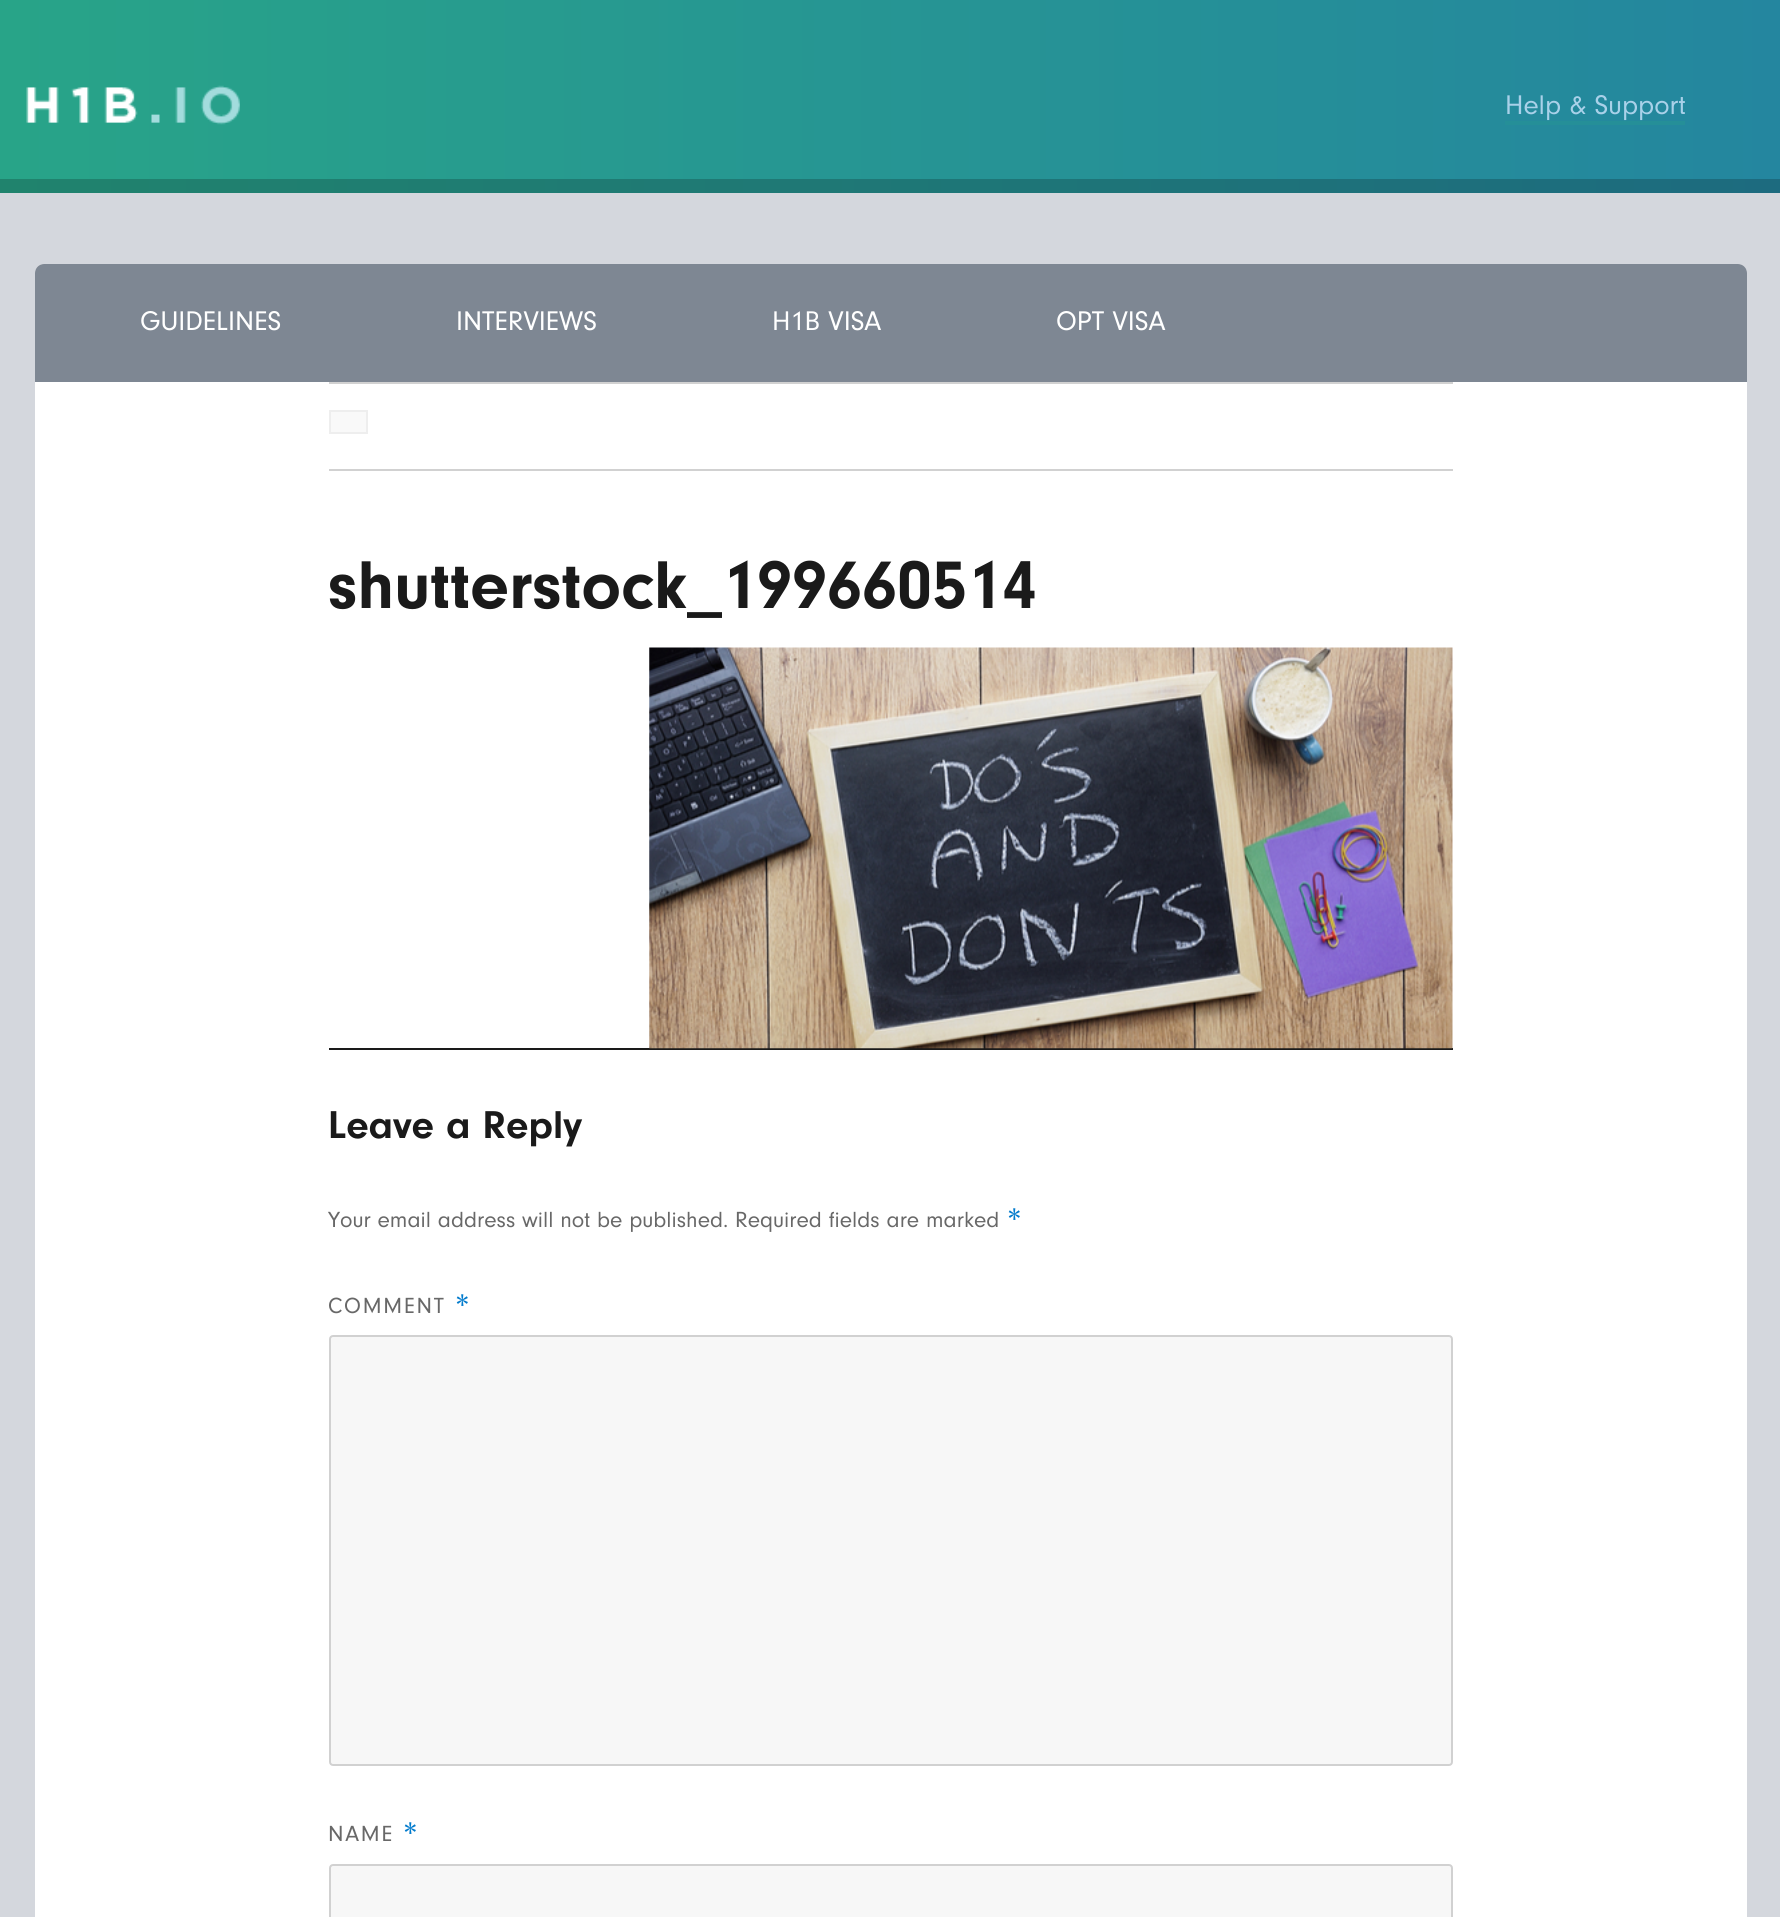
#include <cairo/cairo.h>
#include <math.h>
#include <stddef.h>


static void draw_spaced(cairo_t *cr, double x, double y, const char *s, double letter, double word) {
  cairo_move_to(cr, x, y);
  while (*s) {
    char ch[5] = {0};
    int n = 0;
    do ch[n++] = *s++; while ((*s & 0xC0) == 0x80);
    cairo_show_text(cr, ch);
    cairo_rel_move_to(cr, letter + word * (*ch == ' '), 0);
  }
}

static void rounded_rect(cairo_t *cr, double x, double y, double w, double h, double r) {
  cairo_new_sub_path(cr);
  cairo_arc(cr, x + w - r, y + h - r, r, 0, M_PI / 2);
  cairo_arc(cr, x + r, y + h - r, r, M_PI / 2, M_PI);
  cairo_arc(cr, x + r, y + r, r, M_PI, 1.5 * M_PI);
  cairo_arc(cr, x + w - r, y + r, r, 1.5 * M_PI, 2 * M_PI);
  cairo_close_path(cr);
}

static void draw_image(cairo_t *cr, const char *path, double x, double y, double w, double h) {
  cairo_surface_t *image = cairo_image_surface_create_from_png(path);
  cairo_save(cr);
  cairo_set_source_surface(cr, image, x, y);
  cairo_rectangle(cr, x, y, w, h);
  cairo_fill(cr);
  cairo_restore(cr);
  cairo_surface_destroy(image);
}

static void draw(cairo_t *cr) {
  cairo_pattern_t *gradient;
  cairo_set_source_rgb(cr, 212 / 255.0, 215 / 255.0, 221 / 255.0);
  cairo_paint(cr);
  gradient = cairo_pattern_create_linear(0, 96, 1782, 96);
  cairo_pattern_add_color_stop_rgba(gradient, 0, 40 / 255.0, 164 / 255.0, 136 / 255.0, 1);
  cairo_pattern_add_color_stop_rgba(gradient, 1, 36 / 255.0, 134 / 255.0, 159 / 255.0, 1);
  cairo_set_source(cr, gradient);
  cairo_pattern_destroy(gradient);
  cairo_rectangle(cr, 0, 0, 1780, 179);
  cairo_fill(cr);
  gradient = cairo_pattern_create_linear(0, 96, 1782, 96);
  cairo_pattern_add_color_stop_rgba(gradient, 0, 32 / 255.0, 131 / 255.0, 109 / 255.0, 1);
  cairo_pattern_add_color_stop_rgba(gradient, 1, 29 / 255.0, 107 / 255.0, 127 / 255.0, 1);
  cairo_set_source(cr, gradient);
  cairo_pattern_destroy(gradient);
  cairo_rectangle(cr, 0, 179, 1780, 14);
  cairo_fill(cr);
  draw_image(cr, "images/1.png", 26, 85, 214, 40);
  cairo_set_source_rgb(cr, 37 / 255.0, 143 / 255.0, 152 / 255.0);
  cairo_rectangle(cr, 1505, 121, 180, 4);
  cairo_fill(cr);
  cairo_set_source_rgb(cr, 1, 1, 1);
  cairo_new_path(cr);
  cairo_move_to(cr, 44, 264);
  cairo_line_to(cr, 1738, 264);
  cairo_curve_to(cr, 1743, 264, 1747, 268, 1747, 273);
  cairo_line_to(cr, 1747, 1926);
  cairo_line_to(cr, 35, 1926);
  cairo_line_to(cr, 35, 273);
  cairo_curve_to(cr, 35, 268, 39, 264, 44, 264);
  cairo_close_path(cr);
  cairo_fill(cr);
  cairo_set_source_rgb(cr, 126 / 255.0, 135 / 255.0, 147 / 255.0);
  cairo_new_path(cr);
  cairo_move_to(cr, 44, 264);
  cairo_line_to(cr, 1738, 264);
  cairo_curve_to(cr, 1743, 264, 1747, 268, 1747, 273);
  cairo_line_to(cr, 1747, 382);
  cairo_line_to(cr, 35, 382);
  cairo_line_to(cr, 35, 273);
  cairo_curve_to(cr, 35, 268, 39, 264, 44, 264);
  cairo_close_path(cr);
  cairo_fill(cr);
  cairo_set_source_rgb(cr, 209 / 255.0, 209 / 255.0, 209 / 255.0);
  cairo_rectangle(cr, 329, 382, 1124, 2);
  cairo_fill(cr);
  cairo_rectangle(cr, 329, 469, 1124, 2);
  cairo_fill(cr);
  cairo_set_source_rgb(cr, 249 / 255.0, 249 / 255.0, 249 / 255.0);
  cairo_rectangle(cr, 330, 411, 37, 22);
  cairo_fill_preserve(cr);
  cairo_set_source_rgb(cr, 238 / 255.0, 238 / 255.0, 238 / 255.0);
  cairo_stroke(cr);
  cairo_set_source_rgb(cr, 26 / 255.0, 26 / 255.0, 26 / 255.0);
  cairo_rectangle(cr, 329, 1048, 1124, 2);
  cairo_fill(cr);
  draw_image(cr, "images/2.png", 649, 647, 804, 402);
  cairo_set_source_rgb(cr, 247 / 255.0, 247 / 255.0, 247 / 255.0);
  rounded_rect(cr, 330, 1336, 1122, 429, 3);
  cairo_fill_preserve(cr);
  cairo_set_source_rgb(cr, 209 / 255.0, 209 / 255.0, 209 / 255.0);
  cairo_stroke(cr);
  cairo_set_source_rgb(cr, 247 / 255.0, 247 / 255.0, 247 / 255.0);
  rounded_rect(cr, 330, 1865, 1122, 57, 3);
  cairo_fill_preserve(cr);
  cairo_set_source_rgb(cr, 209 / 255.0, 209 / 255.0, 209 / 255.0);
  cairo_stroke(cr);
  cairo_select_font_face(cr, "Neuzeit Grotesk", CAIRO_FONT_SLANT_NORMAL, CAIRO_FONT_WEIGHT_NORMAL);
  cairo_set_font_size(cr, 28);
  cairo_set_source_rgb(cr, 169 / 255.0, 209 / 255.0, 233 / 255.0);
  cairo_move_to(cr, 1505, 114);
  cairo_show_text(cr, "Help & Support");
  cairo_set_source_rgb(cr, 1, 1, 1);
  cairo_move_to(cr, 140, 330);
  cairo_show_text(cr, "GUIDELINES");
  cairo_move_to(cr, 456, 330);
  cairo_show_text(cr, "INTERVIEWS");
  cairo_move_to(cr, 772, 330);
  cairo_show_text(cr, "H1B VISA");
  cairo_move_to(cr, 1056, 330);
  cairo_show_text(cr, "OPT VISA");
  cairo_select_font_face(cr, "Neuzeit Grotesk", CAIRO_FONT_SLANT_NORMAL, CAIRO_FONT_WEIGHT_BOLD);
  cairo_set_font_size(cr, 70);
  cairo_set_source_rgb(cr, 26 / 255.0, 26 / 255.0, 26 / 255.0);
  cairo_move_to(cr, 328, 608);
  cairo_show_text(cr, "shutterstock_199660514");
  cairo_set_font_size(cr, 40.25);
  cairo_move_to(cr, 328, 1138);
  cairo_show_text(cr, "Leave a Reply");
  cairo_select_font_face(cr, "Neuzeit Grotesk", CAIRO_FONT_SLANT_NORMAL, CAIRO_FONT_WEIGHT_NORMAL);
  cairo_set_font_size(cr, 22.75);
  cairo_set_source_rgb(cr, 104 / 255.0, 104 / 255.0, 104 / 255.0);
  cairo_move_to(cr, 328, 1227);
  cairo_show_text(cr, "Your email address will not be published. Required fields are marked");
  cairo_select_font_face(cr, "Merriweather", CAIRO_FONT_SLANT_NORMAL, CAIRO_FONT_WEIGHT_NORMAL);
  cairo_set_source_rgb(cr, 0, 122 / 255.0, 204 / 255.0);
  cairo_move_to(cr, 1007, 1227);
  cairo_show_text(cr, "*");
  cairo_select_font_face(cr, "Neuzeit Grotesk", CAIRO_FONT_SLANT_NORMAL, CAIRO_FONT_WEIGHT_NORMAL);
  cairo_set_source_rgb(cr, 104 / 255.0, 104 / 255.0, 104 / 255.0);
  draw_spaced(cr, 328, 1313, "COMMENT", 1.75, 0);
  cairo_select_font_face(cr, "Merriweather", CAIRO_FONT_SLANT_NORMAL, CAIRO_FONT_WEIGHT_NORMAL);
  cairo_set_source_rgb(cr, 0, 122 / 255.0, 204 / 255.0);
  draw_spaced(cr, 455, 1313, "*", 1.75, 0);
  cairo_select_font_face(cr, "Neuzeit Grotesk", CAIRO_FONT_SLANT_NORMAL, CAIRO_FONT_WEIGHT_NORMAL);
  cairo_set_source_rgb(cr, 104 / 255.0, 104 / 255.0, 104 / 255.0);
  draw_spaced(cr, 328, 1841, "NAME", 1.75, 0);
  cairo_select_font_face(cr, "Merriweather", CAIRO_FONT_SLANT_NORMAL, CAIRO_FONT_WEIGHT_NORMAL);
  cairo_set_source_rgb(cr, 0, 122 / 255.0, 204 / 255.0);
  draw_spaced(cr, 403, 1841, "*", 1.75, 0);
}

int main(void) {
  cairo_surface_t *surface = cairo_image_surface_create(CAIRO_FORMAT_RGB24, 1780, 1917);
  cairo_t *cr = cairo_create(surface);
  cairo_font_options_t *options = cairo_font_options_create();
  cairo_font_options_set_hint_metrics(options, CAIRO_HINT_METRICS_OFF);
  cairo_font_options_set_hint_style(options, CAIRO_HINT_STYLE_NONE);
  cairo_set_font_options(cr, options);
  cairo_set_miter_limit(cr, 4);
  draw(cr);
  cairo_surface_write_to_png(surface, "out.png");
  cairo_font_options_destroy(options);
  cairo_destroy(cr);
  cairo_surface_destroy(surface);
  return 0;
}
